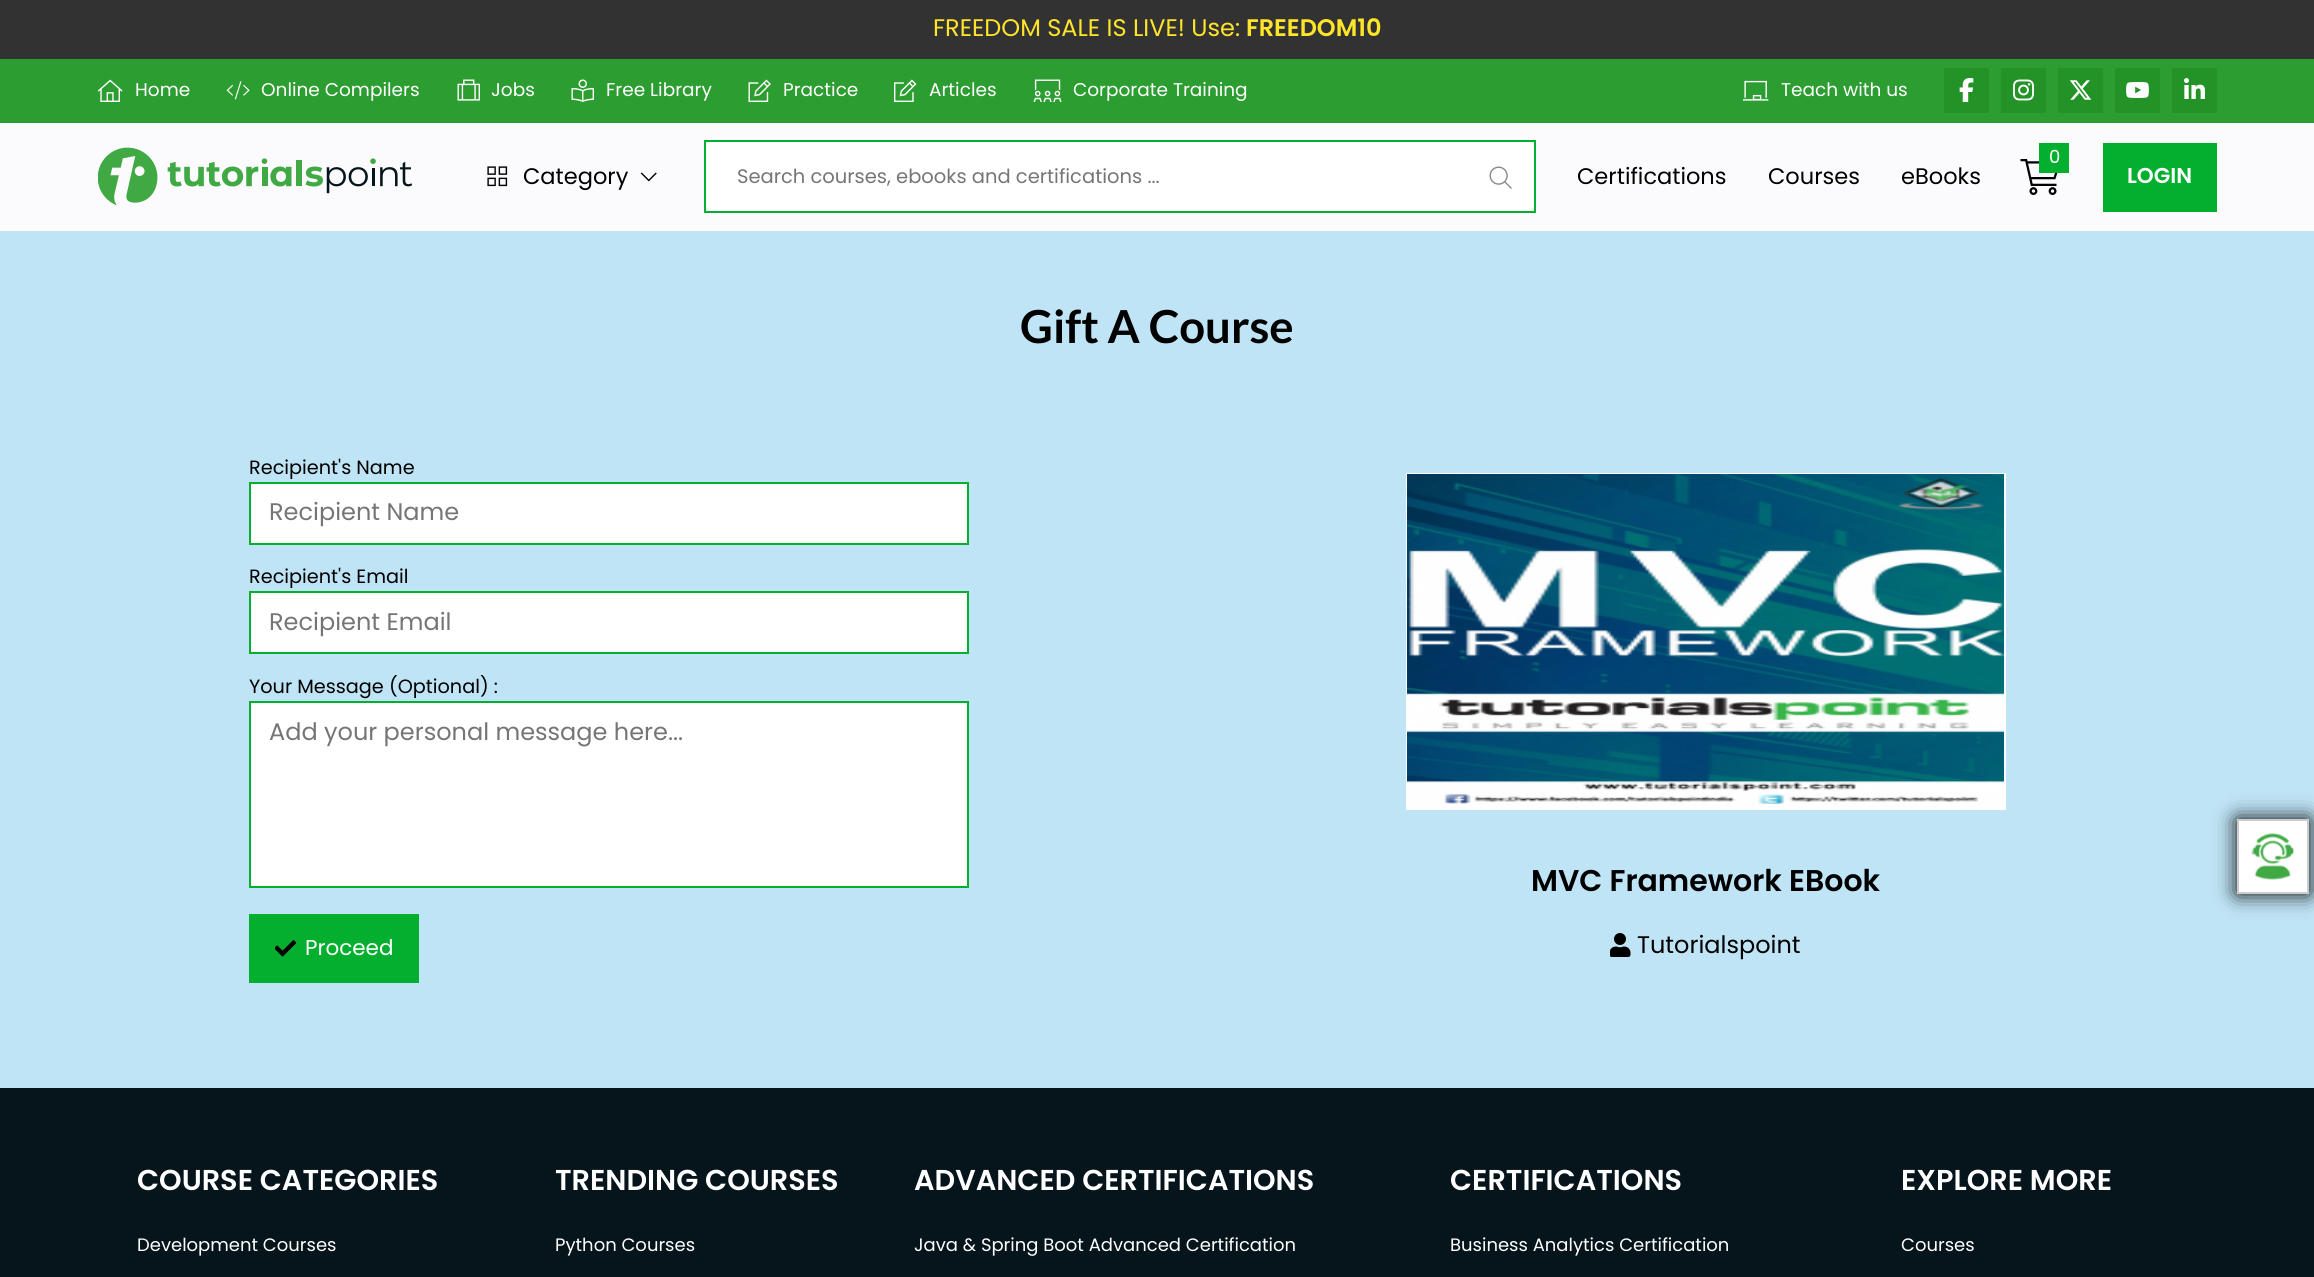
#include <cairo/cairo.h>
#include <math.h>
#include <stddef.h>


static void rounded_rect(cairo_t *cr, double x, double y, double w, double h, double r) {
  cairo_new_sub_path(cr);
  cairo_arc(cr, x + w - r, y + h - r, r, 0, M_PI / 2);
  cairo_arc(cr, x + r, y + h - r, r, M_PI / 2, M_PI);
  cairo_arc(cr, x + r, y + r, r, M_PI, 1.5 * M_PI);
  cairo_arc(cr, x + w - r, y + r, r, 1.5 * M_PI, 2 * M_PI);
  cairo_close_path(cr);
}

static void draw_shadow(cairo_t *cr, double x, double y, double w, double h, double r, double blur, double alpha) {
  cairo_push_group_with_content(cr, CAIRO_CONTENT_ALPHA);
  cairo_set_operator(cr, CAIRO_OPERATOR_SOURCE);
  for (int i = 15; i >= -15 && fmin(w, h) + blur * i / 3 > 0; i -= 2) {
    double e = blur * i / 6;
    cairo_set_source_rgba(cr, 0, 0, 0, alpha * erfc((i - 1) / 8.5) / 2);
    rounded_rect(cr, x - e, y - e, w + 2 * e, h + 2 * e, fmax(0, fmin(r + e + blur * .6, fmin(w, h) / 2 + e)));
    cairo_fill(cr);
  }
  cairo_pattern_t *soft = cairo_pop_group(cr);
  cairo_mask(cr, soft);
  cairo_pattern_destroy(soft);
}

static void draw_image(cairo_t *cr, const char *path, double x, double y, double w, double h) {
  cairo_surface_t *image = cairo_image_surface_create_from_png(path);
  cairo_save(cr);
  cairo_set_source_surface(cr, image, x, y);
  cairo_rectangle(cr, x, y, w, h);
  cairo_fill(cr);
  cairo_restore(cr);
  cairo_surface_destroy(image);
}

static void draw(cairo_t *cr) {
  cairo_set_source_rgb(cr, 251 / 255.0, 251 / 255.0, 253 / 255.0);
  cairo_paint(cr);
  cairo_set_source_rgb(cr, 51 / 255.0, 50 / 255.0, 50 / 255.0);
  cairo_rectangle(cr, 0, 0, 2314, 59);
  cairo_fill(cr);
  cairo_set_source_rgb(cr, 44 / 255.0, 157 / 255.0, 48 / 255.0);
  cairo_rectangle(cr, 0, 59, 2314, 64);
  cairo_fill(cr);
  draw_image(cr, "images/1.png", 98, 79, 25, 23);
  draw_image(cr, "images/2.png", 226, 81, 24, 19);
  draw_image(cr, "images/3.png", 457, 79, 23, 22);
  draw_image(cr, "images/4.png", 571, 79, 23, 23);
  draw_image(cr, "images/5.png", 748, 79, 23, 23);
  draw_image(cr, "images/6.png", 894, 79, 23, 23);
  draw_image(cr, "images/7.png", 1033, 79, 29, 23);
  draw_image(cr, "images/8.png", 1743, 80, 26, 21);
  cairo_set_source_rgb(cr, 35 / 255.0, 147 / 255.0, 39 / 255.0);
  cairo_rectangle(cr, 1944, 68, 45, 45);
  cairo_fill(cr);
  draw_image(cr, "images/9.png", 1959, 78, 15, 24);
  cairo_rectangle(cr, 2001, 68, 45, 45);
  cairo_fill(cr);
  draw_image(cr, "images/10.png", 2013, 79, 21, 22);
  cairo_rectangle(cr, 2058, 68, 45, 45);
  cairo_fill(cr);
  draw_image(cr, "images/11.png", 2069, 80, 23, 20);
  cairo_rectangle(cr, 2115, 68, 45, 45);
  cairo_fill(cr);
  draw_image(cr, "images/12.png", 2126, 82, 23, 16);
  cairo_rectangle(cr, 2172, 68, 45, 45);
  cairo_fill(cr);
  draw_image(cr, "images/13.png", 2184, 78, 21, 21);
  draw_image(cr, "images/14.png", 98, 147, 315, 59);
  draw_image(cr, "images/15.png", 2020, 159, 38, 36);
  cairo_set_source_rgb(cr, 4 / 255.0, 175 / 255.0, 47 / 255.0);
  cairo_rectangle(cr, 2039, 143, 30, 30);
  cairo_fill(cr);
  draw_image(cr, "images/16.png", 487, 166, 21, 21);
  draw_image(cr, "images/17.png", 640, 172, 17, 10);
  cairo_set_source_rgb(cr, 1, 1, 1);
  cairo_rectangle(cr, 705, 141, 830, 71);
  cairo_fill_preserve(cr);
  cairo_set_source_rgb(cr, 4 / 255.0, 175 / 255.0, 47 / 255.0);
  cairo_stroke(cr);
  draw_image(cr, "images/18.png", 1489, 166, 23, 23);
  cairo_rectangle(cr, 2103, 143, 114, 69);
  cairo_fill(cr);
  cairo_set_source_rgb(cr, 191 / 255.0, 228 / 255.0, 245 / 255.0);
  cairo_rectangle(cr, 0, 231, 2314, 857);
  cairo_fill(cr);
  cairo_set_source_rgb(cr, 1, 1, 1);
  cairo_rectangle(cr, 250, 483, 718, 61);
  cairo_fill_preserve(cr);
  cairo_set_source_rgb(cr, 4 / 255.0, 175 / 255.0, 47 / 255.0);
  cairo_stroke(cr);
  cairo_set_source_rgb(cr, 1, 1, 1);
  cairo_rectangle(cr, 250, 592, 718, 61);
  cairo_fill_preserve(cr);
  cairo_set_source_rgb(cr, 4 / 255.0, 175 / 255.0, 47 / 255.0);
  cairo_stroke(cr);
  cairo_set_source_rgb(cr, 1, 1, 1);
  cairo_rectangle(cr, 250, 702, 718, 185);
  cairo_fill_preserve(cr);
  cairo_set_source_rgb(cr, 4 / 255.0, 175 / 255.0, 47 / 255.0);
  cairo_stroke(cr);
  cairo_rectangle(cr, 249, 914, 170, 69);
  cairo_fill(cr);
  draw_image(cr, "images/19.png", 275, 940, 21, 17);
  cairo_rectangle(cr, 1407, 474, 598, 335);
  cairo_set_source_rgb(cr, 1, 1, 1);
  cairo_stroke(cr);
  draw_image(cr, "images/20.png", 1407, 474, 597, 334);
  draw_image(cr, "images/21.png", 1610, 933, 21, 24);
  cairo_set_source_rgb(cr, 0, 0, 0);
  draw_shadow(cr, 2237, 819, 72, 75, 0, 10.5, 1);
  cairo_set_source_rgb(cr, 1, 1, 1);
  cairo_rectangle(cr, 2238, 820, 70, 73);
  cairo_fill_preserve(cr);
  cairo_set_source_rgb(cr, 204 / 255.0, 204 / 255.0, 204 / 255.0);
  cairo_stroke(cr);
  draw_image(cr, "images/22.png", 2251, 833, 43, 47);
  cairo_set_source_rgb(cr, 6 / 255.0, 20 / 255.0, 28 / 255.0);
  cairo_rectangle(cr, 0, 1088, 2314, 189);
  cairo_fill(cr);
  cairo_select_font_face(cr, "Poppins", CAIRO_FONT_SLANT_NORMAL, CAIRO_FONT_WEIGHT_NORMAL);
  cairo_set_font_size(cr, 24);
  cairo_set_source_rgb(cr, 1, 229 / 255.0, 41 / 255.0);
  cairo_move_to(cr, 933, 36);
  cairo_show_text(cr, "FREEDOM SALE IS LIVE! Use:");
  cairo_select_font_face(cr, "Poppins SemiBold", CAIRO_FONT_SLANT_NORMAL, CAIRO_FONT_WEIGHT_NORMAL);
  cairo_move_to(cr, 1246, 36);
  cairo_show_text(cr, "FREEDOM10");
  cairo_select_font_face(cr, "Poppins", CAIRO_FONT_SLANT_NORMAL, CAIRO_FONT_WEIGHT_NORMAL);
  cairo_set_font_size(cr, 18.5);
  cairo_set_source_rgb(cr, 1, 1, 1);
  cairo_move_to(cr, 135, 96);
  cairo_show_text(cr, "Home");
  cairo_move_to(cr, 261, 96);
  cairo_show_text(cr, "Online Compilers");
  cairo_move_to(cr, 491, 96);
  cairo_show_text(cr, "Jobs");
  cairo_move_to(cr, 606, 96);
  cairo_show_text(cr, "Free Library");
  cairo_move_to(cr, 783, 96);
  cairo_show_text(cr, "Practice");
  cairo_move_to(cr, 929, 96);
  cairo_show_text(cr, "Articles");
  cairo_move_to(cr, 1073, 96);
  cairo_show_text(cr, "Corporate Training");
  cairo_move_to(cr, 1781, 96);
  cairo_show_text(cr, "Teach with us");
  cairo_set_font_size(cr, 18);
  cairo_move_to(cr, 2049, 163);
  cairo_show_text(cr, "0");
  cairo_set_font_size(cr, 22.5);
  cairo_set_source_rgb(cr, 0, 0, 0);
  cairo_move_to(cr, 523, 184);
  cairo_show_text(cr, "Category");
  cairo_set_font_size(cr, 19.5);
  cairo_set_source_rgb(cr, 117 / 255.0, 117 / 255.0, 117 / 255.0);
  cairo_move_to(cr, 737, 183);
  cairo_show_text(cr, "Search courses, ebooks and certifications ...");
  cairo_set_font_size(cr, 22.5);
  cairo_set_source_rgb(cr, 0, 0, 0);
  cairo_move_to(cr, 1577, 184);
  cairo_show_text(cr, "Certifications");
  cairo_move_to(cr, 1768, 184);
  cairo_show_text(cr, "Courses");
  cairo_move_to(cr, 1901, 184);
  cairo_show_text(cr, "eBooks");
  cairo_select_font_face(cr, "Poppins SemiBold", CAIRO_FONT_SLANT_NORMAL, CAIRO_FONT_WEIGHT_NORMAL);
  cairo_set_font_size(cr, 21.5);
  cairo_set_source_rgb(cr, 1, 1, 1);
  cairo_move_to(cr, 2127, 183);
  cairo_show_text(cr, "LOGIN");
  cairo_select_font_face(cr, "Lato", CAIRO_FONT_SLANT_NORMAL, CAIRO_FONT_WEIGHT_BOLD);
  cairo_set_font_size(cr, 45.5);
  cairo_set_source_rgb(cr, 0, 0, 0);
  cairo_move_to(cr, 1020, 343);
  cairo_show_text(cr, "Gift A Course");
  cairo_select_font_face(cr, "Poppins", CAIRO_FONT_SLANT_NORMAL, CAIRO_FONT_WEIGHT_NORMAL);
  cairo_set_font_size(cr, 19.25);
  cairo_move_to(cr, 249, 474);
  cairo_show_text(cr, "Recipient's Name");
  cairo_set_font_size(cr, 24);
  cairo_set_source_rgb(cr, 117 / 255.0, 117 / 255.0, 117 / 255.0);
  cairo_move_to(cr, 269, 520);
  cairo_show_text(cr, "Recipient Name");
  cairo_set_font_size(cr, 19.25);
  cairo_set_source_rgb(cr, 0, 0, 0);
  cairo_move_to(cr, 249, 583);
  cairo_show_text(cr, "Recipient's Email");
  cairo_set_font_size(cr, 24);
  cairo_set_source_rgb(cr, 117 / 255.0, 117 / 255.0, 117 / 255.0);
  cairo_move_to(cr, 269, 630);
  cairo_show_text(cr, "Recipient Email");
  cairo_set_font_size(cr, 19.25);
  cairo_set_source_rgb(cr, 0, 0, 0);
  cairo_move_to(cr, 249, 693);
  cairo_show_text(cr, "Your Message (Optional) :");
  cairo_set_font_size(cr, 24);
  cairo_set_source_rgb(cr, 117 / 255.0, 117 / 255.0, 117 / 255.0);
  cairo_move_to(cr, 269, 740);
  cairo_show_text(cr, "Add your personal message here...");
  cairo_set_font_size(cr, 21.5);
  cairo_set_source_rgb(cr, 1, 1, 1);
  cairo_move_to(cr, 305, 955);
  cairo_show_text(cr, "Proceed");
  cairo_select_font_face(cr, "Poppins SemiBold", CAIRO_FONT_SLANT_NORMAL, CAIRO_FONT_WEIGHT_NORMAL);
  cairo_set_font_size(cr, 30);
  cairo_set_source_rgb(cr, 0, 0, 0);
  cairo_move_to(cr, 1531, 891);
  cairo_show_text(cr, "MVC Framework EBook");
  cairo_select_font_face(cr, "Poppins", CAIRO_FONT_SLANT_NORMAL, CAIRO_FONT_WEIGHT_NORMAL);
  cairo_set_font_size(cr, 24);
  cairo_move_to(cr, 1637, 953);
  cairo_show_text(cr, "Tutorialspoint");
  cairo_select_font_face(cr, "Poppins SemiBold", CAIRO_FONT_SLANT_NORMAL, CAIRO_FONT_WEIGHT_NORMAL);
  cairo_set_font_size(cr, 28.75);
  cairo_set_source_rgb(cr, 1, 1, 1);
  cairo_move_to(cr, 137, 1190);
  cairo_show_text(cr, "COURSE CATEGORIES");
  cairo_select_font_face(cr, "Poppins", CAIRO_FONT_SLANT_NORMAL, CAIRO_FONT_WEIGHT_NORMAL);
  cairo_set_font_size(cr, 18);
  cairo_move_to(cr, 137, 1251);
  cairo_show_text(cr, "Development Courses");
  cairo_select_font_face(cr, "Poppins SemiBold", CAIRO_FONT_SLANT_NORMAL, CAIRO_FONT_WEIGHT_NORMAL);
  cairo_set_font_size(cr, 28.75);
  cairo_move_to(cr, 555, 1190);
  cairo_show_text(cr, "TRENDING COURSES");
  cairo_select_font_face(cr, "Poppins", CAIRO_FONT_SLANT_NORMAL, CAIRO_FONT_WEIGHT_NORMAL);
  cairo_set_font_size(cr, 18);
  cairo_move_to(cr, 555, 1251);
  cairo_show_text(cr, "Python Courses");
  cairo_select_font_face(cr, "Poppins SemiBold", CAIRO_FONT_SLANT_NORMAL, CAIRO_FONT_WEIGHT_NORMAL);
  cairo_set_font_size(cr, 28.75);
  cairo_move_to(cr, 914, 1190);
  cairo_show_text(cr, "ADVANCED CERTIFICATIONS");
  cairo_select_font_face(cr, "Poppins", CAIRO_FONT_SLANT_NORMAL, CAIRO_FONT_WEIGHT_NORMAL);
  cairo_set_font_size(cr, 18);
  cairo_move_to(cr, 914, 1251);
  cairo_show_text(cr, "Java & Spring Boot Advanced Certification");
  cairo_select_font_face(cr, "Poppins SemiBold", CAIRO_FONT_SLANT_NORMAL, CAIRO_FONT_WEIGHT_NORMAL);
  cairo_set_font_size(cr, 28.75);
  cairo_move_to(cr, 1450, 1190);
  cairo_show_text(cr, "CERTIFICATIONS");
  cairo_select_font_face(cr, "Poppins", CAIRO_FONT_SLANT_NORMAL, CAIRO_FONT_WEIGHT_NORMAL);
  cairo_set_font_size(cr, 18);
  cairo_move_to(cr, 1450, 1251);
  cairo_show_text(cr, "Business Analytics Certification");
  cairo_select_font_face(cr, "Poppins SemiBold", CAIRO_FONT_SLANT_NORMAL, CAIRO_FONT_WEIGHT_NORMAL);
  cairo_set_font_size(cr, 28.75);
  cairo_move_to(cr, 1901, 1190);
  cairo_show_text(cr, "EXPLORE MORE");
  cairo_select_font_face(cr, "Poppins", CAIRO_FONT_SLANT_NORMAL, CAIRO_FONT_WEIGHT_NORMAL);
  cairo_set_font_size(cr, 18);
  cairo_move_to(cr, 1901, 1251);
  cairo_show_text(cr, "Courses");
}

int main(void) {
  cairo_surface_t *surface = cairo_image_surface_create(CAIRO_FORMAT_RGB24, 2314, 1277);
  cairo_t *cr = cairo_create(surface);
  cairo_font_options_t *options = cairo_font_options_create();
  cairo_font_options_set_hint_metrics(options, CAIRO_HINT_METRICS_OFF);
  cairo_font_options_set_hint_style(options, CAIRO_HINT_STYLE_NONE);
  cairo_set_font_options(cr, options);
  cairo_set_miter_limit(cr, 4);
  draw(cr);
  cairo_surface_write_to_png(surface, "out.png");
  cairo_font_options_destroy(options);
  cairo_destroy(cr);
  cairo_surface_destroy(surface);
  return 0;
}
